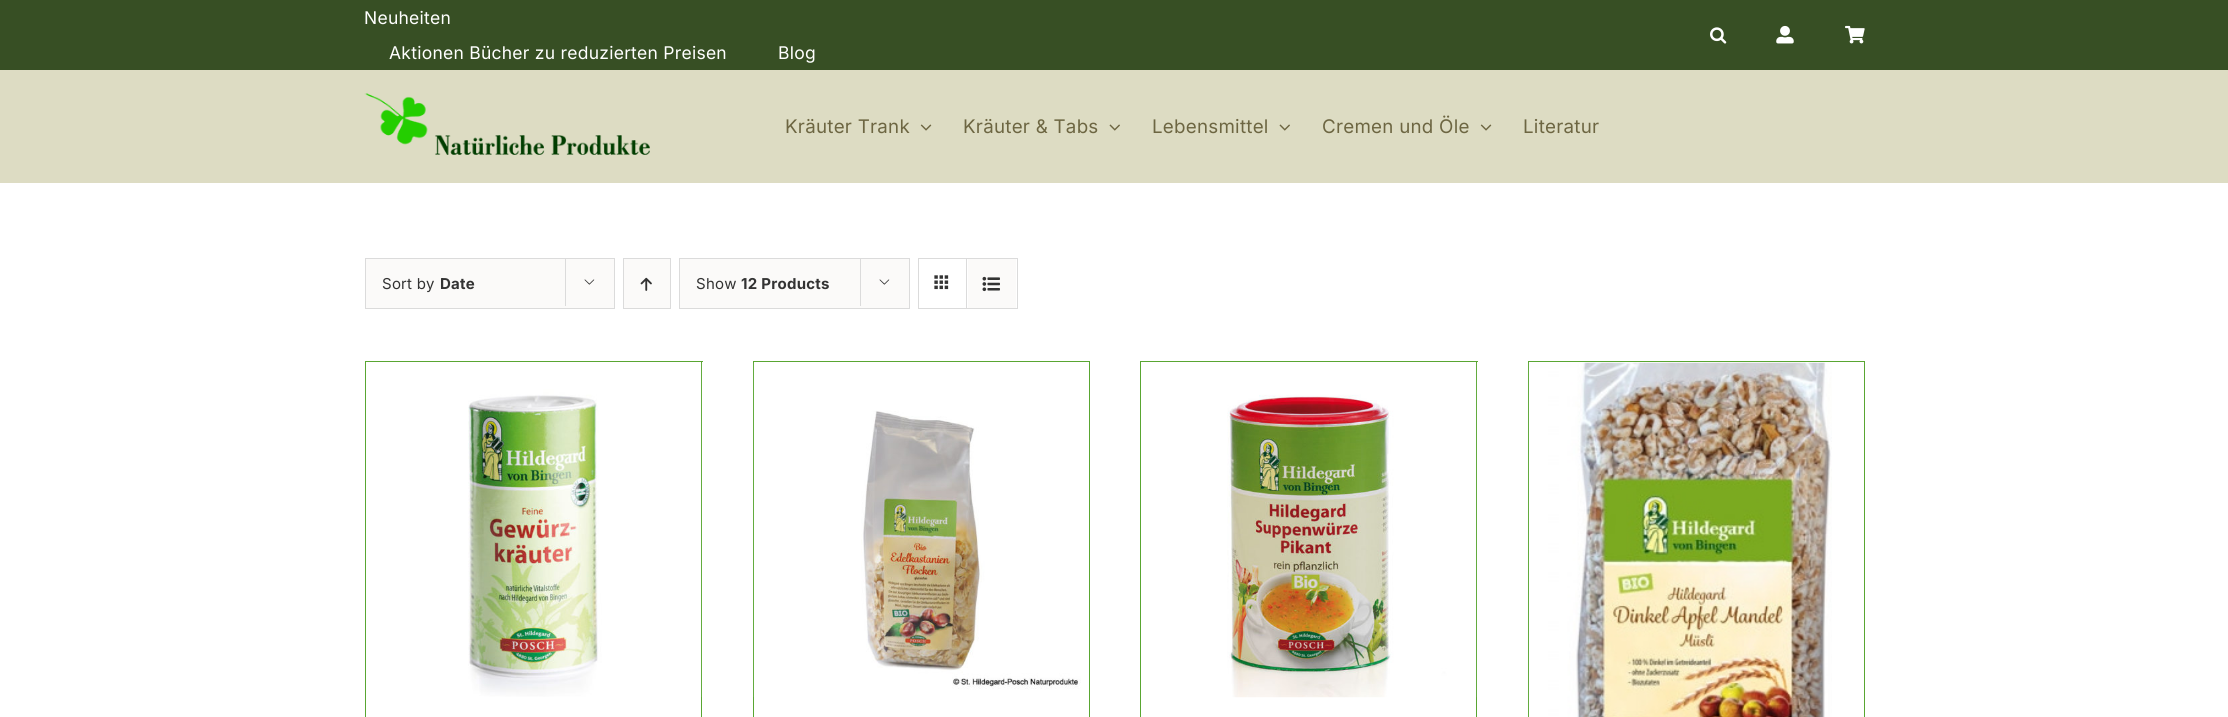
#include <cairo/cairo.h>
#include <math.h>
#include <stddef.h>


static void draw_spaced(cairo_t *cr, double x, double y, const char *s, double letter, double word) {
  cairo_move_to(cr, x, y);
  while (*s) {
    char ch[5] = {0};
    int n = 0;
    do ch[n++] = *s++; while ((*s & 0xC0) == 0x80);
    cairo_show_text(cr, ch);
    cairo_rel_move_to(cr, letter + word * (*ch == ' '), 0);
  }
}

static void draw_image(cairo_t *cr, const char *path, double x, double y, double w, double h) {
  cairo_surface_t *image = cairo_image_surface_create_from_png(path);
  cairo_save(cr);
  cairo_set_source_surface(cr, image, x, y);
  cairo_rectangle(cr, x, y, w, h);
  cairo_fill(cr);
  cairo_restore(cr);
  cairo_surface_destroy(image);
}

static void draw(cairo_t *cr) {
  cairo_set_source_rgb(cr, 1, 1, 1);
  cairo_paint(cr);
  cairo_set_source_rgb(cr, 55 / 255.0, 79 / 255.0, 36 / 255.0);
  cairo_rectangle(cr, 0, 0, 2228, 70);
  cairo_fill(cr);
  draw_image(cr, "images/1.png", 1710, 27, 17, 17);
  draw_image(cr, "images/2.png", 1776, 25, 18, 19);
  draw_image(cr, "images/3.png", 1845, 25, 20, 19);
  cairo_set_source_rgb(cr, 221 / 255.0, 220 / 255.0, 195 / 255.0);
  cairo_rectangle(cr, 0, 70, 2228, 113);
  cairo_fill(cr);
  draw_image(cr, "images/4.png", 364, 93, 286, 62);
  draw_image(cr, "images/5.png", 920, 124, 12, 7);
  draw_image(cr, "images/6.png", 1109, 124, 11, 7);
  draw_image(cr, "images/6.png", 1279, 124, 11, 7);
  draw_image(cr, "images/5.png", 1480, 124, 12, 7);
  cairo_set_source_rgb(cr, 251 / 255.0, 250 / 255.0, 249 / 255.0);
  cairo_rectangle(cr, 365.5, 258.5, 249, 50);
  cairo_fill_preserve(cr);
  cairo_set_source_rgb(cr, 219 / 255.0, 219 / 255.0, 219 / 255.0);
  cairo_set_line_width(cr, 1);
  cairo_stroke(cr);
  cairo_rectangle(cr, 565, 258, 1, 48);
  cairo_fill(cr);
  draw_image(cr, "images/7.png", 584, 279, 11, 6);
  cairo_set_source_rgb(cr, 251 / 255.0, 250 / 255.0, 249 / 255.0);
  cairo_rectangle(cr, 623.5, 258.5, 47, 50);
  cairo_fill_preserve(cr);
  cairo_set_source_rgb(cr, 219 / 255.0, 219 / 255.0, 219 / 255.0);
  cairo_stroke(cr);
  draw_image(cr, "images/8.png", 640, 277, 12, 14);
  cairo_set_source_rgb(cr, 251 / 255.0, 250 / 255.0, 249 / 255.0);
  cairo_rectangle(cr, 679.5, 258.5, 230, 50);
  cairo_fill_preserve(cr);
  cairo_set_source_rgb(cr, 219 / 255.0, 219 / 255.0, 219 / 255.0);
  cairo_stroke(cr);
  cairo_rectangle(cr, 860, 258, 1, 48);
  cairo_fill(cr);
  draw_image(cr, "images/7.png", 879, 279, 11, 6);
  cairo_rectangle(cr, 918.5, 258.5, 99, 50);
  cairo_stroke(cr);
  cairo_rectangle(cr, 966, 259, 1, 49);
  cairo_fill(cr);
  draw_image(cr, "images/9.png", 934, 275, 15, 15);
  cairo_set_source_rgb(cr, 251 / 255.0, 250 / 255.0, 249 / 255.0);
  cairo_rectangle(cr, 968, 259, 48, 49);
  cairo_fill(cr);
  draw_image(cr, "images/10.png", 982, 276, 18, 16);
  cairo_set_source_rgb(cr, 89 / 255.0, 166 / 255.0, 50 / 255.0);
  cairo_rectangle(cr, 365, 361, 338, 1);
  cairo_fill(cr);
  cairo_rectangle(cr, 701, 361, 1, 356);
  cairo_fill(cr);
  cairo_rectangle(cr, 365, 361, 1, 356);
  cairo_fill(cr);
  draw_image(cr, "images/11.png", 468, 363, 234, 334);
  cairo_rectangle(cr, 753, 361, 337, 1);
  cairo_fill(cr);
  cairo_rectangle(cr, 1089, 361, 1, 356);
  cairo_fill(cr);
  cairo_rectangle(cr, 753, 361, 1, 356);
  cairo_fill(cr);
  draw_image(cr, "images/12.png", 753, 363, 328, 334);
  cairo_rectangle(cr, 1140, 361, 338, 1);
  cairo_fill(cr);
  cairo_rectangle(cr, 1476, 361, 1, 356);
  cairo_fill(cr);
  cairo_rectangle(cr, 1140, 361, 1, 356);
  cairo_fill(cr);
  draw_image(cr, "images/13.png", 1227, 363, 250, 335);
  cairo_rectangle(cr, 1528, 361, 337, 1);
  cairo_fill(cr);
  cairo_rectangle(cr, 1864, 361, 1, 356);
  cairo_fill(cr);
  cairo_rectangle(cr, 1528, 361, 1, 356);
  cairo_fill(cr);
  draw_image(cr, "images/14.png", 1528, 362, 304, 355);
  cairo_select_font_face(cr, "Inter", CAIRO_FONT_SLANT_NORMAL, CAIRO_FONT_WEIGHT_NORMAL);
  cairo_set_font_size(cr, 17.5);
  cairo_set_source_rgb(cr, 1, 1, 1);
  draw_spaced(cr, 364, 24, "Neuheiten", 0.25, 0);
  draw_spaced(cr, 389, 59, "Aktionen Bücher zu reduzierten Preisen", 0.25, 0);
  draw_spaced(cr, 778, 59, "Blog", 0.25, 0);
  cairo_set_font_size(cr, 18.75);
  cairo_set_source_rgb(cr, 109 / 255.0, 102 / 255.0, 66 / 255.0);
  draw_spaced(cr, 785, 133, "Kräuter Trank", 0.25, 0);
  draw_spaced(cr, 963, 133, "Kräuter & Tabs", 0.25, 0);
  draw_spaced(cr, 1152, 133, "Lebensmittel", 0.25, 0);
  draw_spaced(cr, 1322, 133, "Cremen und Öle", 0.25, 0);
  draw_spaced(cr, 1523, 133, "Literatur", 0.25, 0);
  cairo_set_font_size(cr, 15);
  cairo_set_source_rgb(cr, 51 / 255.0, 51 / 255.0, 51 / 255.0);
  draw_spaced(cr, 382, 289, "Sort by", 0.25, 0);
  cairo_select_font_face(cr, "Inter", CAIRO_FONT_SLANT_NORMAL, CAIRO_FONT_WEIGHT_BOLD);
  draw_spaced(cr, 440, 289, "Date", 0.25, 0);
  cairo_select_font_face(cr, "Inter", CAIRO_FONT_SLANT_NORMAL, CAIRO_FONT_WEIGHT_NORMAL);
  draw_spaced(cr, 696, 289, "Show", 0.25, 0);
  cairo_select_font_face(cr, "Inter", CAIRO_FONT_SLANT_NORMAL, CAIRO_FONT_WEIGHT_BOLD);
  draw_spaced(cr, 741, 289, "12 Products", 0.25, 0);
}

int main(void) {
  cairo_surface_t *surface = cairo_image_surface_create(CAIRO_FORMAT_RGB24, 2228, 717);
  cairo_t *cr = cairo_create(surface);
  cairo_font_options_t *options = cairo_font_options_create();
  cairo_font_options_set_hint_metrics(options, CAIRO_HINT_METRICS_OFF);
  cairo_font_options_set_hint_style(options, CAIRO_HINT_STYLE_NONE);
  cairo_set_font_options(cr, options);
  cairo_set_miter_limit(cr, 4);
  draw(cr);
  cairo_surface_write_to_png(surface, "out.png");
  cairo_font_options_destroy(options);
  cairo_destroy(cr);
  cairo_surface_destroy(surface);
  return 0;
}
